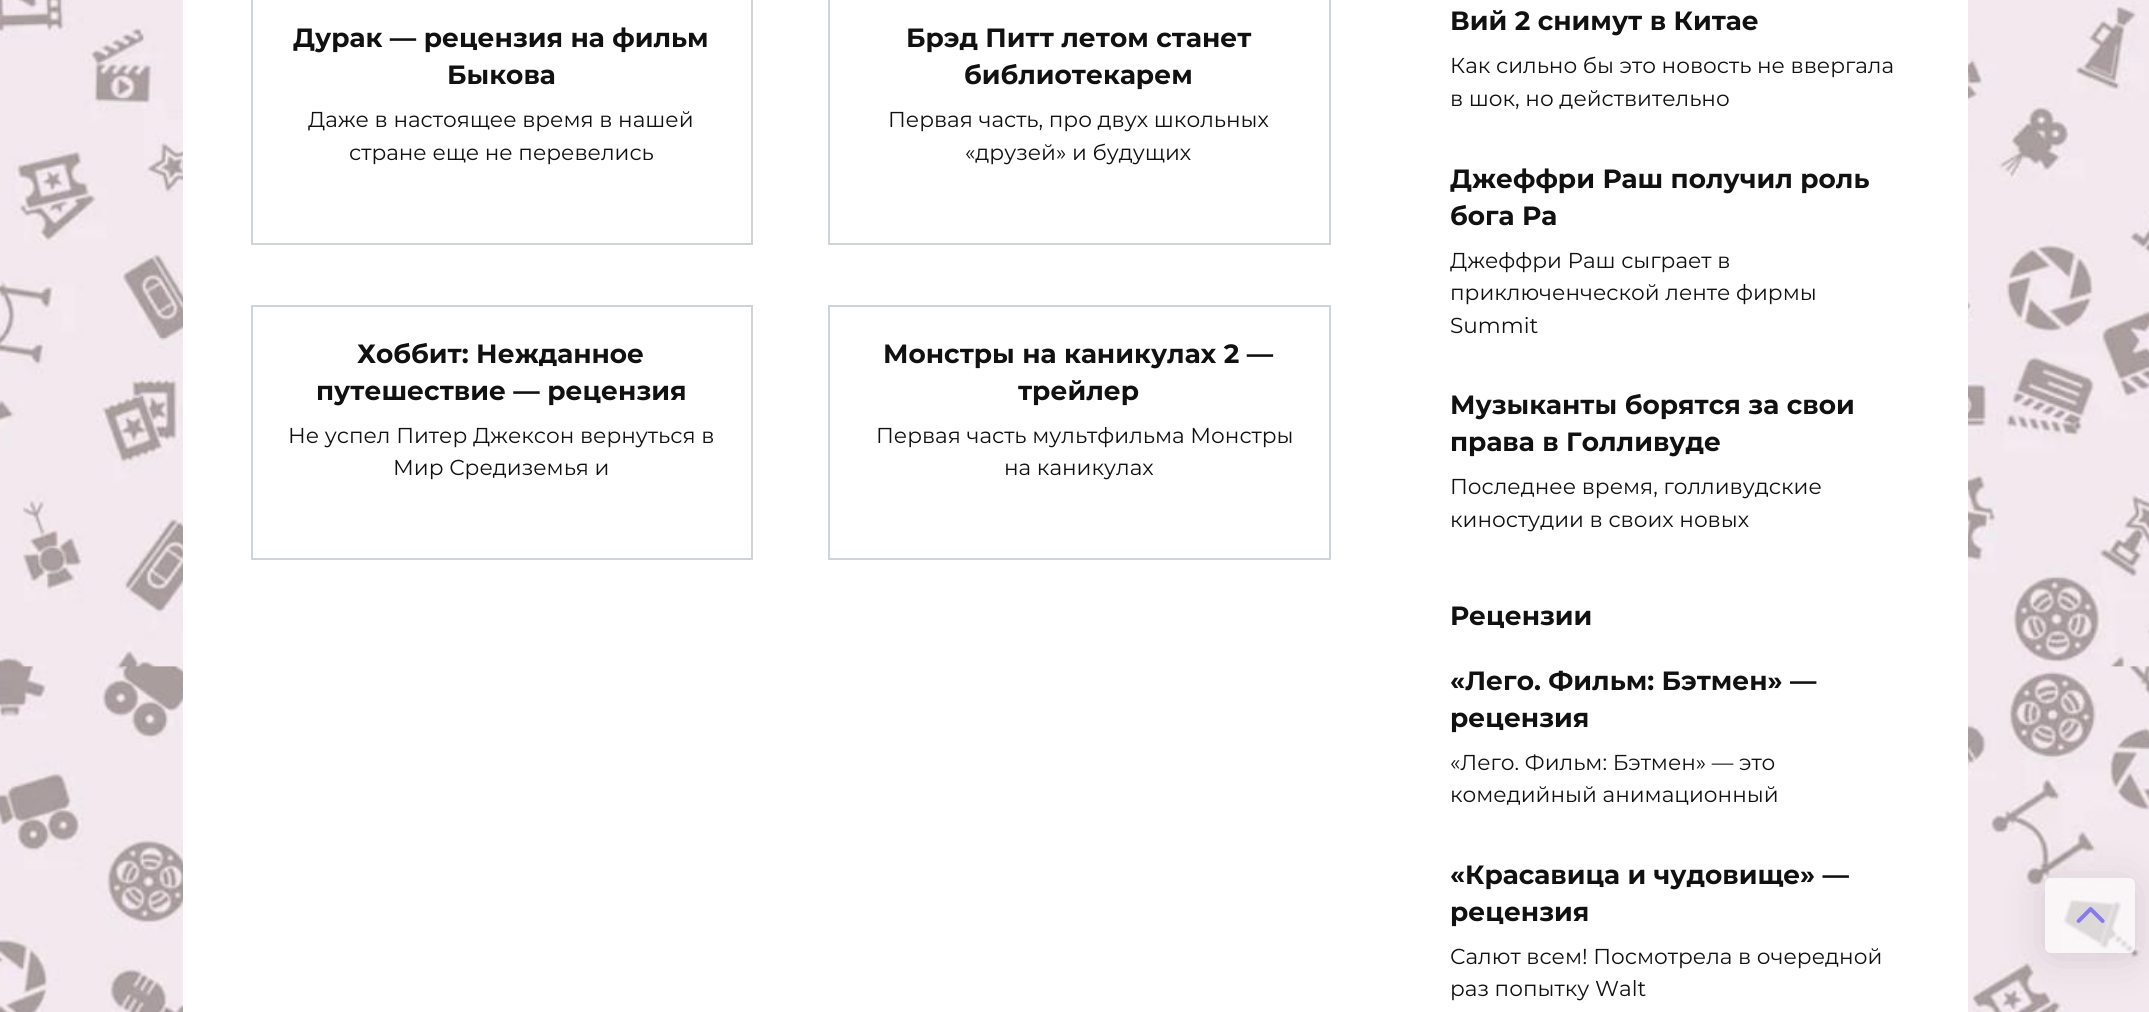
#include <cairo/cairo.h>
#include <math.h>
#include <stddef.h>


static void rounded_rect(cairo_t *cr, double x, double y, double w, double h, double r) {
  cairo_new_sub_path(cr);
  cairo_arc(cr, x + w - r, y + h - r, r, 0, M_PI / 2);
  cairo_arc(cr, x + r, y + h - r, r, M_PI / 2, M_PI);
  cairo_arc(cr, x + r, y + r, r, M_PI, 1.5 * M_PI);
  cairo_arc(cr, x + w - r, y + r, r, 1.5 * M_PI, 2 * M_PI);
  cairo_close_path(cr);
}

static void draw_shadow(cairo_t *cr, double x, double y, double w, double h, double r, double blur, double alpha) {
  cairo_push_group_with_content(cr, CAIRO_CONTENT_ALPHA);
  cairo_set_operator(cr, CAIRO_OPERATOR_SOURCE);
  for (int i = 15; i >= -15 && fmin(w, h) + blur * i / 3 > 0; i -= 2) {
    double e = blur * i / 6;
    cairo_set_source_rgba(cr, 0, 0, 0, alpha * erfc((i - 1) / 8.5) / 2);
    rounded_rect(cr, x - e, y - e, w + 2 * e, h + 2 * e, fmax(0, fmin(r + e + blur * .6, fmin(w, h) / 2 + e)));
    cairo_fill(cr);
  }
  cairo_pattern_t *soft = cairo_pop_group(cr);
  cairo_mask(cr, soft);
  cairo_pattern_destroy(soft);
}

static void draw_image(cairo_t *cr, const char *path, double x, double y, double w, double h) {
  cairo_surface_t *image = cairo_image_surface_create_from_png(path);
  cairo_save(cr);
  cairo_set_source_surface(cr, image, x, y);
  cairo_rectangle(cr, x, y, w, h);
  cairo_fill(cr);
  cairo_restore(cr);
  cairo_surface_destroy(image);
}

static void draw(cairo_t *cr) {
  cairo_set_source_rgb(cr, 1, 1, 1);
  cairo_paint(cr);
  draw_image(cr, "images/1.png", 0, 0, 2149, 1012);
  cairo_set_source_rgb(cr, 1, 1, 1);
  cairo_rectangle(cr, 183, 0, 1785, 1012);
  cairo_fill(cr);
  cairo_rectangle(cr, 252, -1, 500, 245);
  cairo_set_source_rgb(cr, 206 / 255.0, 212 / 255.0, 218 / 255.0);
  cairo_stroke(cr);
  cairo_rectangle(cr, 829, -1, 501, 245);
  cairo_stroke(cr);
  cairo_rectangle(cr, 252, 306, 500, 253);
  cairo_stroke(cr);
  cairo_rectangle(cr, 829, 306, 501, 253);
  cairo_stroke(cr);
  cairo_save(cr);
  cairo_set_fill_rule(cr, CAIRO_FILL_RULE_EVEN_ODD);
  cairo_new_path(cr);
  cairo_move_to(cr, 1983, 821);
  cairo_line_to(cr, 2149, 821);
  cairo_line_to(cr, 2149, 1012);
  cairo_line_to(cr, 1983, 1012);
  cairo_close_path(cr);
  cairo_move_to(cr, 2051, 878);
  cairo_line_to(cr, 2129, 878);
  cairo_curve_to(cr, 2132.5, 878, 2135, 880.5, 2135, 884);
  cairo_line_to(cr, 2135, 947);
  cairo_curve_to(cr, 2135, 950.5, 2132.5, 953, 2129, 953);
  cairo_line_to(cr, 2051, 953);
  cairo_curve_to(cr, 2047.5, 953, 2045, 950.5, 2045, 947);
  cairo_line_to(cr, 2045, 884);
  cairo_curve_to(cr, 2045, 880.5, 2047.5, 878, 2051, 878);
  cairo_close_path(cr);
  cairo_clip(cr);
  cairo_set_source_rgb(cr, 0, 0, 0);
  draw_shadow(cr, 2052, 890, 75, 60, 0, 22.5, 0.18);
  cairo_restore(cr);
  cairo_set_source_rgba(cr, 1, 1, 1, 0.6);
  rounded_rect(cr, 2045, 878, 90, 75, 6);
  cairo_fill(cr);
  cairo_select_font_face(cr, "Montserrat", CAIRO_FONT_SLANT_NORMAL, CAIRO_FONT_WEIGHT_BOLD);
  cairo_set_font_size(cr, 26.4);
  cairo_set_source_rgb(cr, 17 / 255.0, 17 / 255.0, 17 / 255.0);
  cairo_move_to(cr, 293, 47);
  cairo_show_text(cr, "Дурак — рецензия на фильм");
  cairo_move_to(cr, 447, 84);
  cairo_show_text(cr, "Быкова");
  cairo_select_font_face(cr, "Montserrat", CAIRO_FONT_SLANT_NORMAL, CAIRO_FONT_WEIGHT_NORMAL);
  cairo_set_font_size(cr, 21.6);
  cairo_move_to(cr, 308, 127);
  cairo_show_text(cr, "Даже в настоящее время в нашей");
  cairo_move_to(cr, 349, 160);
  cairo_show_text(cr, "стране еще не перевелись");
  cairo_select_font_face(cr, "Montserrat", CAIRO_FONT_SLANT_NORMAL, CAIRO_FONT_WEIGHT_BOLD);
  cairo_set_font_size(cr, 26.4);
  cairo_move_to(cr, 906, 47);
  cairo_show_text(cr, "Брэд Питт летом станет");
  cairo_move_to(cr, 964, 84);
  cairo_show_text(cr, "библиотекарем");
  cairo_select_font_face(cr, "Montserrat", CAIRO_FONT_SLANT_NORMAL, CAIRO_FONT_WEIGHT_NORMAL);
  cairo_set_font_size(cr, 21.6);
  cairo_move_to(cr, 888, 127);
  cairo_show_text(cr, "Первая часть, про двух школьных");
  cairo_move_to(cr, 965, 160);
  cairo_show_text(cr, "«друзей» и будущих");
  cairo_select_font_face(cr, "Montserrat", CAIRO_FONT_SLANT_NORMAL, CAIRO_FONT_WEIGHT_BOLD);
  cairo_set_font_size(cr, 26.4);
  cairo_move_to(cr, 357, 363);
  cairo_show_text(cr, "Хоббит: Нежданное");
  cairo_move_to(cr, 316, 400);
  cairo_show_text(cr, "путешествие — рецензия");
  cairo_select_font_face(cr, "Montserrat", CAIRO_FONT_SLANT_NORMAL, CAIRO_FONT_WEIGHT_NORMAL);
  cairo_set_font_size(cr, 21.6);
  cairo_move_to(cr, 288, 443);
  cairo_show_text(cr, "Не успел Питер Джексон вернуться в");
  cairo_move_to(cr, 393, 475);
  cairo_show_text(cr, "Мир Средиземья и");
  cairo_select_font_face(cr, "Montserrat", CAIRO_FONT_SLANT_NORMAL, CAIRO_FONT_WEIGHT_BOLD);
  cairo_set_font_size(cr, 26.4);
  cairo_move_to(cr, 883, 363);
  cairo_show_text(cr, "Монстры на каникулах 2 —");
  cairo_move_to(cr, 1018, 400);
  cairo_show_text(cr, "трейлер");
  cairo_select_font_face(cr, "Montserrat", CAIRO_FONT_SLANT_NORMAL, CAIRO_FONT_WEIGHT_NORMAL);
  cairo_set_font_size(cr, 21.6);
  cairo_move_to(cr, 876, 443);
  cairo_show_text(cr, "Первая часть мультфильма Монстры");
  cairo_move_to(cr, 1004, 475);
  cairo_show_text(cr, "на каникулах");
  cairo_select_font_face(cr, "Montserrat", CAIRO_FONT_SLANT_NORMAL, CAIRO_FONT_WEIGHT_BOLD);
  cairo_set_font_size(cr, 26.4);
  cairo_move_to(cr, 1450, 30);
  cairo_show_text(cr, "Вий 2 снимут в Китае");
  cairo_select_font_face(cr, "Montserrat", CAIRO_FONT_SLANT_NORMAL, CAIRO_FONT_WEIGHT_NORMAL);
  cairo_set_font_size(cr, 21.6);
  cairo_move_to(cr, 1450, 73);
  cairo_show_text(cr, "Как сильно бы это новость не ввергала");
  cairo_move_to(cr, 1450, 106);
  cairo_show_text(cr, "в шок, но действительно");
  cairo_select_font_face(cr, "Montserrat", CAIRO_FONT_SLANT_NORMAL, CAIRO_FONT_WEIGHT_BOLD);
  cairo_set_font_size(cr, 26.4);
  cairo_move_to(cr, 1450, 188);
  cairo_show_text(cr, "Джеффри Раш получил роль");
  cairo_move_to(cr, 1450, 225);
  cairo_show_text(cr, "бога Ра");
  cairo_select_font_face(cr, "Montserrat", CAIRO_FONT_SLANT_NORMAL, CAIRO_FONT_WEIGHT_NORMAL);
  cairo_set_font_size(cr, 21.6);
  cairo_move_to(cr, 1450, 268);
  cairo_show_text(cr, "Джеффри Раш сыграет в");
  cairo_move_to(cr, 1450, 300);
  cairo_show_text(cr, "приключенческой ленте фирмы");
  cairo_move_to(cr, 1450, 333);
  cairo_show_text(cr, "Summit");
  cairo_select_font_face(cr, "Montserrat", CAIRO_FONT_SLANT_NORMAL, CAIRO_FONT_WEIGHT_BOLD);
  cairo_set_font_size(cr, 26.4);
  cairo_move_to(cr, 1450, 414);
  cairo_show_text(cr, "Музыканты борятся за свои");
  cairo_move_to(cr, 1450, 451);
  cairo_show_text(cr, "права в Голливуде");
  cairo_select_font_face(cr, "Montserrat", CAIRO_FONT_SLANT_NORMAL, CAIRO_FONT_WEIGHT_NORMAL);
  cairo_set_font_size(cr, 21.6);
  cairo_move_to(cr, 1450, 494);
  cairo_show_text(cr, "Последнее время, голливудские");
  cairo_move_to(cr, 1450, 527);
  cairo_show_text(cr, "киностудии в своих новых");
  cairo_select_font_face(cr, "Montserrat", CAIRO_FONT_SLANT_NORMAL, CAIRO_FONT_WEIGHT_BOLD);
  cairo_set_font_size(cr, 26.4);
  cairo_move_to(cr, 1450, 625);
  cairo_show_text(cr, "Рецензии");
  cairo_move_to(cr, 1450, 690);
  cairo_show_text(cr, "«Лего. Фильм: Бэтмен» —");
  cairo_move_to(cr, 1450, 727);
  cairo_show_text(cr, "рецензия");
  cairo_select_font_face(cr, "Montserrat", CAIRO_FONT_SLANT_NORMAL, CAIRO_FONT_WEIGHT_NORMAL);
  cairo_set_font_size(cr, 21.6);
  cairo_move_to(cr, 1450, 770);
  cairo_show_text(cr, "«Лего. Фильм: Бэтмен» — это");
  cairo_move_to(cr, 1450, 802);
  cairo_show_text(cr, "комедийный анимационный");
  cairo_select_font_face(cr, "Montserrat", CAIRO_FONT_SLANT_NORMAL, CAIRO_FONT_WEIGHT_BOLD);
  cairo_set_font_size(cr, 26.4);
  cairo_move_to(cr, 1450, 884);
  cairo_show_text(cr, "«Красавица и чудовище» —");
  cairo_move_to(cr, 1450, 921);
  cairo_show_text(cr, "рецензия");
  cairo_select_font_face(cr, "Montserrat", CAIRO_FONT_SLANT_NORMAL, CAIRO_FONT_WEIGHT_NORMAL);
  cairo_set_font_size(cr, 21.6);
  cairo_move_to(cr, 1450, 964);
  cairo_show_text(cr, "Салют всем! Посмотрела в очередной");
  cairo_move_to(cr, 1450, 996);
  cairo_show_text(cr, "раз попытку Walt");
  cairo_select_font_face(cr, "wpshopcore", CAIRO_FONT_SLANT_NORMAL, CAIRO_FONT_WEIGHT_NORMAL);
  cairo_set_font_size(cr, 48);
  cairo_set_source_rgb(cr, 135 / 255.0, 122 / 255.0, 239 / 255.0);
  cairo_move_to(cr, 2066, 935);
  cairo_show_text(cr, "︿");
}

int main(void) {
  cairo_surface_t *surface = cairo_image_surface_create(CAIRO_FORMAT_RGB24, 2149, 1012);
  cairo_t *cr = cairo_create(surface);
  cairo_font_options_t *options = cairo_font_options_create();
  cairo_font_options_set_hint_metrics(options, CAIRO_HINT_METRICS_OFF);
  cairo_font_options_set_hint_style(options, CAIRO_HINT_STYLE_NONE);
  cairo_set_font_options(cr, options);
  cairo_set_miter_limit(cr, 4);
  draw(cr);
  cairo_surface_write_to_png(surface, "out.png");
  cairo_font_options_destroy(options);
  cairo_destroy(cr);
  cairo_surface_destroy(surface);
  return 0;
}
